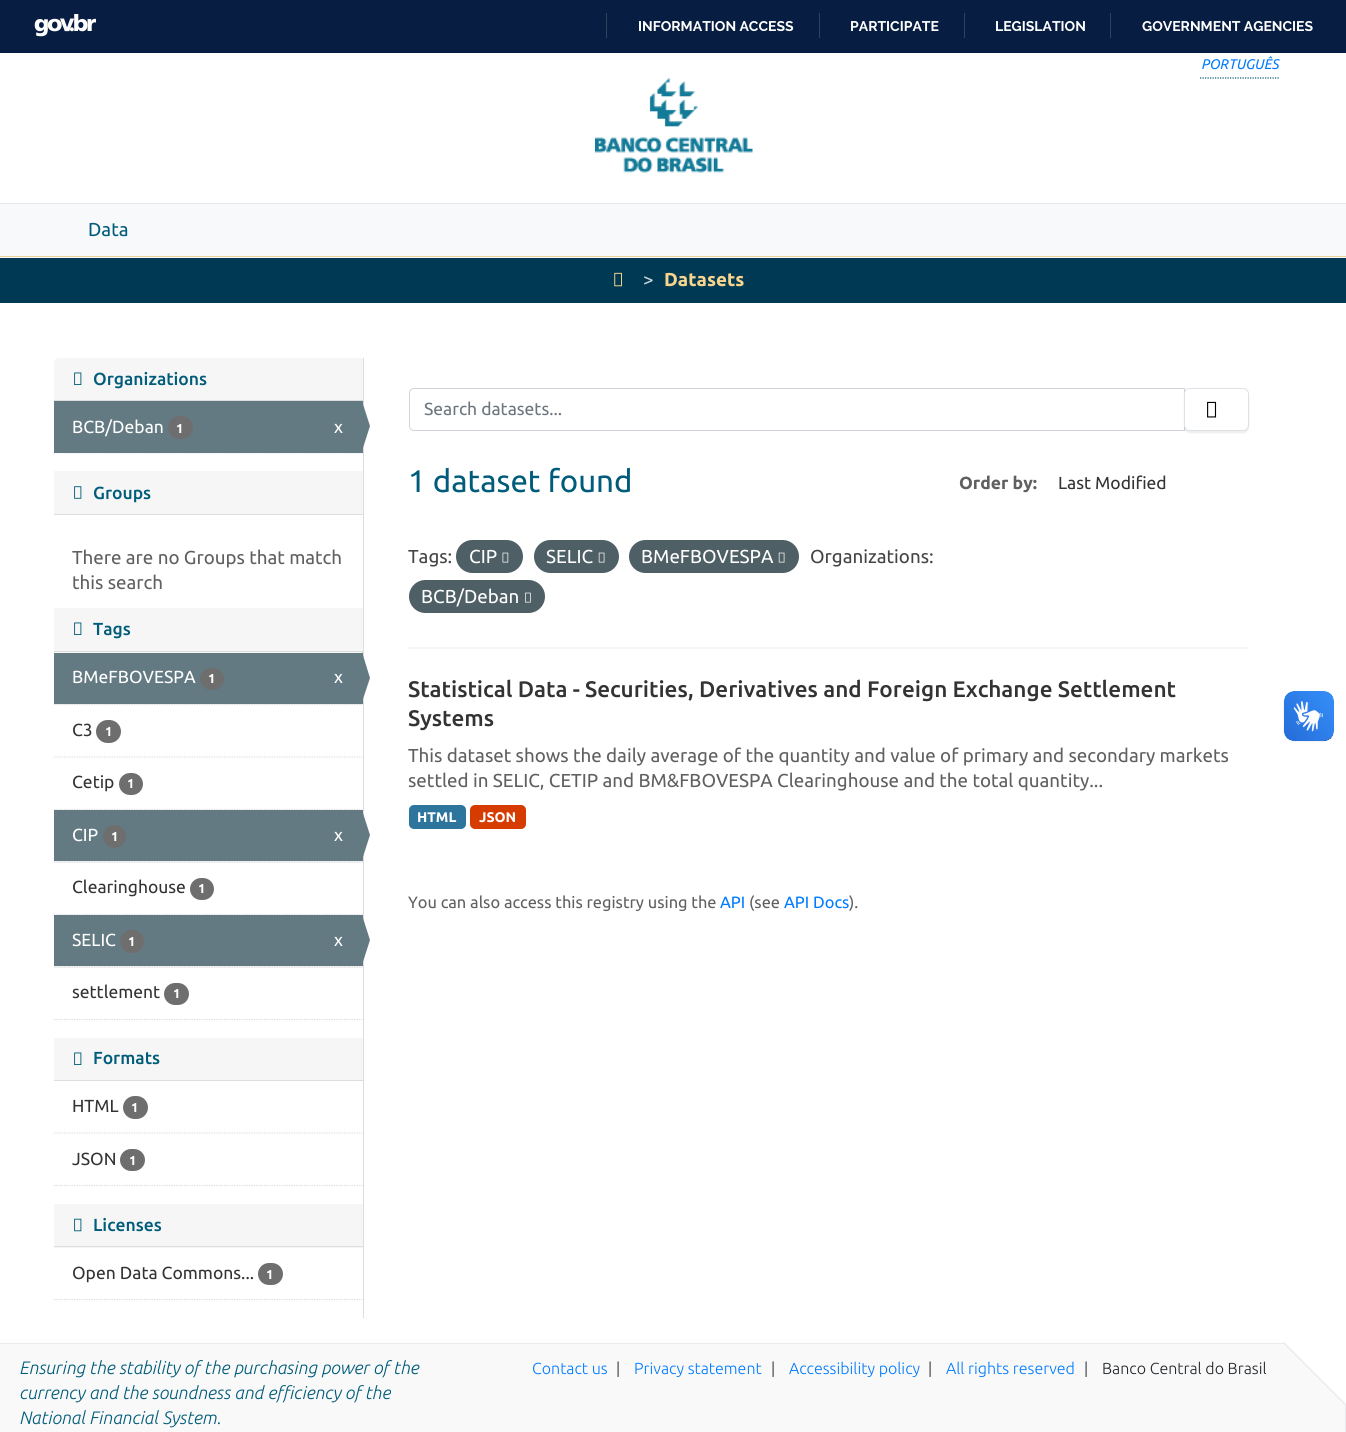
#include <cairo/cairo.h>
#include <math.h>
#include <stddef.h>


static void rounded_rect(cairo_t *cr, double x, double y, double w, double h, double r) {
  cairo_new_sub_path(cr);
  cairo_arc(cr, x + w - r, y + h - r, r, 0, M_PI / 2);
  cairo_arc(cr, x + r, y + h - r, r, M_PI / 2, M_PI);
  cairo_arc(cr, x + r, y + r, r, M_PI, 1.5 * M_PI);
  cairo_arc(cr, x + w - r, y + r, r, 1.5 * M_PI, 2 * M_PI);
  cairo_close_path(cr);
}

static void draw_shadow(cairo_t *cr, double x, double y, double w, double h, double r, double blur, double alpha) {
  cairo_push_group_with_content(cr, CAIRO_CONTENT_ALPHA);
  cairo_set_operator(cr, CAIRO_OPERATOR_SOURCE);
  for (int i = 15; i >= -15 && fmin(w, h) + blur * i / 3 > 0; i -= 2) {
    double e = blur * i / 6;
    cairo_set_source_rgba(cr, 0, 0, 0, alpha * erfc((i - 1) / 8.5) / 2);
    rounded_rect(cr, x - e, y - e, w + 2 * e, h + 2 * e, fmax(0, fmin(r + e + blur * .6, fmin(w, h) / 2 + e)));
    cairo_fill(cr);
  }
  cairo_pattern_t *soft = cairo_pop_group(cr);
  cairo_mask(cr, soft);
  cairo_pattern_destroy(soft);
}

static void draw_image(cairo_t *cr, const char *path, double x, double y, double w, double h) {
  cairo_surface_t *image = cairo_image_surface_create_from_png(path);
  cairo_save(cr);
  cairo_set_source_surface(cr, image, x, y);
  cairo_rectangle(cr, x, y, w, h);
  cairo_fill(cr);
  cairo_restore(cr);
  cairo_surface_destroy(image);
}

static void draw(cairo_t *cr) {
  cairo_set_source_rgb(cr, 1, 1, 1);
  cairo_paint(cr);
  cairo_set_source_rgb(cr, 7 / 255.0, 29 / 255.0, 65 / 255.0);
  cairo_rectangle(cr, 0, 0, 1346, 53);
  cairo_fill(cr);
  draw_image(cr, "images/1.png", 34, 14, 62, 23);
  cairo_set_source_rgb(cr, 50 / 255.0, 66 / 255.0, 91 / 255.0);
  cairo_rectangle(cr, 606, 13, 1, 25);
  cairo_fill(cr);
  cairo_rectangle(cr, 819, 13, 1, 25);
  cairo_fill(cr);
  cairo_rectangle(cr, 964, 13, 1, 25);
  cairo_fill(cr);
  cairo_rectangle(cr, 1110, 13, 1, 25);
  cairo_fill(cr);
  cairo_new_path(cr);
  cairo_move_to(cr, 1200, 78);
  cairo_line_to(cr, 1279, 78);
  cairo_set_source_rgb(cr, 2 / 255.0, 92 / 255.0, 117 / 255.0);
  cairo_set_line_width(cr, 1.2);
  cairo_set_dash(cr, (double[]){1.25, 1.25}, 2, 0);
  cairo_stroke(cr);
  draw_image(cr, "images/2.png", 595, 77, 158, 96);
  cairo_set_source_rgb(cr, 248 / 255.0, 249 / 255.0, 250 / 255.0);
  cairo_rectangle(cr, 0, 204, 1346, 54);
  cairo_fill(cr);
  cairo_set_source_rgb(cr, 234 / 255.0, 234 / 255.0, 234 / 255.0);
  cairo_rectangle(cr, 0, 203, 1346, 1);
  cairo_fill(cr);
  cairo_set_source_rgb(cr, 237 / 255.0, 210 / 255.0, 151 / 255.0);
  cairo_rectangle(cr, 0, 256, 1346, 1);
  cairo_fill(cr);
  cairo_set_source_rgb(cr, 0, 57 / 255.0, 84 / 255.0);
  cairo_rectangle(cr, 0, 258, 1346, 45);
  cairo_fill(cr);
  draw_image(cr, "images/3.png", 614, 272, 8, 15);
  cairo_set_source_rgb(cr, 246 / 255.0, 246 / 255.0, 246 / 255.0);
  cairo_new_path(cr);
  cairo_move_to(cr, 58, 358);
  cairo_line_to(cr, 363, 358);
  cairo_line_to(cr, 363, 401);
  cairo_line_to(cr, 54, 401);
  cairo_line_to(cr, 54, 362);
  cairo_curve_to(cr, 54, 360, 56, 358, 58, 358);
  cairo_close_path(cr);
  cairo_fill(cr);
  cairo_set_source_rgb(cr, 221 / 255.0, 221 / 255.0, 221 / 255.0);
  cairo_rectangle(cr, 54, 400, 309, 1);
  cairo_fill(cr);
  draw_image(cr, "images/4.png", 74, 372, 8, 13);
  cairo_new_path(cr);
  cairo_move_to(cr, 54, 453);
  cairo_line_to(cr, 362.5, 453);
  cairo_stroke(cr);
  cairo_set_source_rgb(cr, 100 / 255.0, 122 / 255.0, 130 / 255.0);
  cairo_rectangle(cr, 54, 401, 309, 52);
  cairo_fill(cr);
  cairo_set_source_rgb(cr, 110 / 255.0, 110 / 255.0, 110 / 255.0);
  rounded_rect(cr, 168, 416, 25, 23, 11.5);
  cairo_fill(cr);
  cairo_set_source_rgb(cr, 221 / 255.0, 221 / 255.0, 221 / 255.0);
  cairo_rectangle(cr, 363, 358, 1, 960);
  cairo_fill(cr);
  cairo_set_source_rgb(cr, 100 / 255.0, 122 / 255.0, 130 / 255.0);
  cairo_new_path(cr);
  cairo_move_to(cr, 362, 451);
  cairo_line_to(cr, 362, 401);
  cairo_line_to(cr, 370, 426);
  cairo_close_path(cr);
  cairo_fill(cr);
  cairo_set_source_rgb(cr, 246 / 255.0, 246 / 255.0, 246 / 255.0);
  cairo_rectangle(cr, 54, 471, 309, 43);
  cairo_fill(cr);
  cairo_set_source_rgb(cr, 221 / 255.0, 221 / 255.0, 221 / 255.0);
  cairo_rectangle(cr, 54, 514, 309, 1);
  cairo_fill(cr);
  draw_image(cr, "images/5.png", 74, 486, 8, 13);
  cairo_set_source_rgb(cr, 246 / 255.0, 246 / 255.0, 246 / 255.0);
  cairo_rectangle(cr, 54, 608, 309, 45);
  cairo_fill(cr);
  cairo_set_source_rgb(cr, 221 / 255.0, 221 / 255.0, 221 / 255.0);
  cairo_rectangle(cr, 54, 651, 309, 1);
  cairo_fill(cr);
  draw_image(cr, "images/4.png", 74, 622, 8, 13);
  cairo_set_source_rgb(cr, 246 / 255.0, 246 / 255.0, 246 / 255.0);
  cairo_rectangle(cr, 55, 704, 308, 1);
  cairo_fill(cr);
  cairo_new_path(cr);
  cairo_move_to(cr, 54, 704.5);
  cairo_line_to(cr, 362.5, 704.5);
  cairo_set_source_rgb(cr, 221 / 255.0, 221 / 255.0, 221 / 255.0);
  cairo_stroke(cr);
  cairo_set_source_rgb(cr, 100 / 255.0, 122 / 255.0, 130 / 255.0);
  cairo_rectangle(cr, 54, 653, 309, 51);
  cairo_fill(cr);
  cairo_set_source_rgb(cr, 110 / 255.0, 110 / 255.0, 110 / 255.0);
  rounded_rect(cr, 200, 668, 24, 22, 11);
  cairo_fill(cr);
  cairo_set_source_rgb(cr, 100 / 255.0, 122 / 255.0, 130 / 255.0);
  cairo_new_path(cr);
  cairo_move_to(cr, 362, 702);
  cairo_line_to(cr, 362, 652);
  cairo_line_to(cr, 370, 678);
  cairo_close_path(cr);
  cairo_fill(cr);
  cairo_new_path(cr);
  cairo_move_to(cr, 54, 757);
  cairo_line_to(cr, 362.5, 757);
  cairo_set_source_rgb(cr, 221 / 255.0, 221 / 255.0, 221 / 255.0);
  cairo_stroke(cr);
  cairo_set_source_rgb(cr, 110 / 255.0, 110 / 255.0, 110 / 255.0);
  rounded_rect(cr, 96, 720, 25, 23, 11.5);
  cairo_fill(cr);
  cairo_new_path(cr);
  cairo_move_to(cr, 54, 809.5);
  cairo_line_to(cr, 362.5, 809.5);
  cairo_set_source_rgb(cr, 221 / 255.0, 221 / 255.0, 221 / 255.0);
  cairo_stroke(cr);
  cairo_set_source_rgb(cr, 110 / 255.0, 110 / 255.0, 110 / 255.0);
  rounded_rect(cr, 119, 773, 24, 22, 11);
  cairo_fill(cr);
  cairo_set_source_rgb(cr, 246 / 255.0, 246 / 255.0, 246 / 255.0);
  cairo_rectangle(cr, 54, 861, 309, 2);
  cairo_fill(cr);
  cairo_new_path(cr);
  cairo_move_to(cr, 54, 862);
  cairo_line_to(cr, 362.5, 862);
  cairo_set_source_rgb(cr, 221 / 255.0, 221 / 255.0, 221 / 255.0);
  cairo_stroke(cr);
  cairo_set_source_rgb(cr, 100 / 255.0, 122 / 255.0, 130 / 255.0);
  cairo_rectangle(cr, 54, 810, 309, 51);
  cairo_fill(cr);
  cairo_set_source_rgb(cr, 110 / 255.0, 110 / 255.0, 110 / 255.0);
  cairo_arc(cr, 114.5, 836.5, 11.5, 0, 2 * M_PI);
  cairo_fill(cr);
  cairo_set_source_rgb(cr, 100 / 255.0, 122 / 255.0, 130 / 255.0);
  cairo_new_path(cr);
  cairo_move_to(cr, 362, 860);
  cairo_line_to(cr, 362, 810);
  cairo_line_to(cr, 370, 835);
  cairo_close_path(cr);
  cairo_fill(cr);
  cairo_new_path(cr);
  cairo_move_to(cr, 54, 914.5);
  cairo_line_to(cr, 362.5, 914.5);
  cairo_set_source_rgb(cr, 221 / 255.0, 221 / 255.0, 221 / 255.0);
  cairo_stroke(cr);
  cairo_set_source_rgb(cr, 110 / 255.0, 110 / 255.0, 110 / 255.0);
  rounded_rect(cr, 190, 878, 24, 22, 11);
  cairo_fill(cr);
  cairo_set_source_rgb(cr, 246 / 255.0, 246 / 255.0, 246 / 255.0);
  cairo_rectangle(cr, 54, 966, 309, 2);
  cairo_fill(cr);
  cairo_new_path(cr);
  cairo_move_to(cr, 54, 967);
  cairo_line_to(cr, 362.5, 967);
  cairo_set_source_rgb(cr, 221 / 255.0, 221 / 255.0, 221 / 255.0);
  cairo_stroke(cr);
  cairo_set_source_rgb(cr, 100 / 255.0, 122 / 255.0, 130 / 255.0);
  cairo_rectangle(cr, 54, 915, 309, 51);
  cairo_fill(cr);
  cairo_set_source_rgb(cr, 110 / 255.0, 110 / 255.0, 110 / 255.0);
  rounded_rect(cr, 120, 930, 24, 23, 11.5);
  cairo_fill(cr);
  cairo_set_source_rgb(cr, 100 / 255.0, 122 / 255.0, 130 / 255.0);
  cairo_new_path(cr);
  cairo_move_to(cr, 362, 965);
  cairo_line_to(cr, 362, 915);
  cairo_line_to(cr, 370, 940);
  cairo_close_path(cr);
  cairo_fill(cr);
  cairo_set_source_rgb(cr, 110 / 255.0, 110 / 255.0, 110 / 255.0);
  rounded_rect(cr, 164, 983, 25, 22, 11);
  cairo_fill(cr);
  cairo_new_path(cr);
  cairo_move_to(cr, 54, 1019.5);
  cairo_line_to(cr, 362.5, 1019.5);
  cairo_set_source_rgb(cr, 221 / 255.0, 221 / 255.0, 221 / 255.0);
  cairo_stroke(cr);
  cairo_set_source_rgb(cr, 246 / 255.0, 246 / 255.0, 246 / 255.0);
  cairo_rectangle(cr, 54, 1038, 309, 42);
  cairo_fill(cr);
  cairo_set_source_rgb(cr, 221 / 255.0, 221 / 255.0, 221 / 255.0);
  cairo_rectangle(cr, 54, 1080, 309, 1);
  cairo_fill(cr);
  draw_image(cr, "images/4.png", 74, 1052, 8, 13);
  cairo_new_path(cr);
  cairo_move_to(cr, 54, 1133);
  cairo_line_to(cr, 362.5, 1133);
  cairo_stroke(cr);
  cairo_set_source_rgb(cr, 110 / 255.0, 110 / 255.0, 110 / 255.0);
  rounded_rect(cr, 123, 1096, 25, 23, 11.5);
  cairo_fill(cr);
  rounded_rect(cr, 120, 1149, 25, 22, 11);
  cairo_fill(cr);
  cairo_new_path(cr);
  cairo_move_to(cr, 54, 1185.5);
  cairo_line_to(cr, 362.5, 1185.5);
  cairo_set_source_rgb(cr, 221 / 255.0, 221 / 255.0, 221 / 255.0);
  cairo_stroke(cr);
  cairo_set_source_rgb(cr, 246 / 255.0, 246 / 255.0, 246 / 255.0);
  cairo_rectangle(cr, 54, 1204, 309, 44);
  cairo_fill(cr);
  cairo_set_source_rgb(cr, 221 / 255.0, 221 / 255.0, 221 / 255.0);
  cairo_rectangle(cr, 54, 1246, 309, 1);
  cairo_fill(cr);
  draw_image(cr, "images/6.png", 74, 1218, 8, 14);
  cairo_set_source_rgb(cr, 110 / 255.0, 110 / 255.0, 110 / 255.0);
  rounded_rect(cr, 258, 1263, 25, 22, 11);
  cairo_fill(cr);
  cairo_new_path(cr);
  cairo_move_to(cr, 54, 1299.5);
  cairo_line_to(cr, 362.5, 1299.5);
  cairo_set_source_rgb(cr, 221 / 255.0, 221 / 255.0, 221 / 255.0);
  cairo_stroke(cr);
  cairo_new_path(cr);
  cairo_move_to(cr, 409, 648);
  cairo_line_to(cr, 1249, 648);
  cairo_stroke(cr);
  cairo_new_path(cr);
  cairo_move_to(cr, 414, 388.5);
  cairo_line_to(cr, 1184.5, 388.5);
  cairo_line_to(cr, 1184.5, 430.5);
  cairo_line_to(cr, 414, 430.5);
  cairo_curve_to(cr, 411.5, 430.5, 409.5, 428.5, 409.5, 426);
  cairo_line_to(cr, 409.5, 393);
  cairo_curve_to(cr, 409.5, 390.5, 411.5, 388.5, 414, 388.5);
  cairo_close_path(cr);
  cairo_set_source_rgb(cr, 206 / 255.0, 212 / 255.0, 218 / 255.0);
  cairo_set_line_width(cr, 1);
  cairo_set_dash(cr, NULL, 0, 0);
  cairo_stroke(cr);
  cairo_set_source_rgb(cr, 0, 0, 0);
  draw_shadow(cr, 1184, 389, 65, 44, 6, 0.5, 0.07);
  cairo_set_source_rgb(cr, 1, 1, 1);
  rounded_rect(cr, 1184.5, 388.5, 64, 42, 5.5);
  cairo_fill_preserve(cr);
  cairo_set_source_rgb(cr, 222 / 255.0, 226 / 255.0, 230 / 255.0);
  cairo_stroke(cr);
  draw_image(cr, "images/7.png", 1207, 401, 10, 17);
  cairo_set_source_rgb(cr, 78 / 255.0, 95 / 255.0, 101 / 255.0);
  rounded_rect(cr, 456, 540, 67, 33, 16.5);
  cairo_fill(cr);
  draw_image(cr, "images/8.png", 502, 552, 7, 11);
  rounded_rect(cr, 534, 540, 85, 33, 16.5);
  cairo_fill(cr);
  draw_image(cr, "images/9.png", 598, 552, 7, 11);
  rounded_rect(cr, 629, 540, 170, 33, 16.5);
  cairo_fill(cr);
  draw_image(cr, "images/9.png", 778, 552, 7, 11);
  rounded_rect(cr, 409, 580, 136, 33, 16.5);
  cairo_fill(cr);
  draw_image(cr, "images/10.png", 525, 592, 6, 11);
  cairo_set_source_rgb(cr, 46 / 255.0, 117 / 255.0, 158 / 255.0);
  rounded_rect(cr, 409, 805, 57, 24, 5);
  cairo_fill(cr);
  cairo_set_source_rgb(cr, 214 / 255.0, 59 / 255.0, 0);
  rounded_rect(cr, 470, 805, 56, 24, 5);
  cairo_fill(cr);
  draw_image(cr, "images/11.png", 1283, 691, 51, 51);
  draw_image(cr, "images/12.png", 1284, 691, 50, 50);
  cairo_set_source_rgb(cr, 249 / 255.0, 249 / 255.0, 249 / 255.0);
  cairo_rectangle(cr, 0, 1344, 1345, 88);
  cairo_fill(cr);
  cairo_set_source_rgb(cr, 233 / 255.0, 236 / 255.0, 239 / 255.0);
  cairo_rectangle(cr, 0, 1343, 1286, 1);
  cairo_fill(cr);
  cairo_rectangle(cr, 1345, 1404, 1, 28);
  cairo_fill(cr);
  cairo_set_source_rgb(cr, 1, 1, 1);
  cairo_new_path(cr);
  cairo_move_to(cr, 1284, 1342);
  cairo_line_to(cr, 1346, 1342);
  cairo_line_to(cr, 1346, 1405);
  cairo_close_path(cr);
  cairo_fill(cr);
  cairo_set_source_rgb(cr, 233 / 255.0, 236 / 255.0, 239 / 255.0);
  cairo_new_path(cr);
  cairo_move_to(cr, 1283, 1343);
  cairo_line_to(cr, 1284, 1342);
  cairo_line_to(cr, 1346, 1404);
  cairo_line_to(cr, 1345, 1405);
  cairo_close_path(cr);
  cairo_fill(cr);
  cairo_select_font_face(cr, "Raleway", CAIRO_FONT_SLANT_NORMAL, CAIRO_FONT_WEIGHT_BOLD);
  cairo_set_font_size(cr, 14);
  cairo_set_source_rgb(cr, 1, 1, 1);
  cairo_move_to(cr, 638, 31);
  cairo_show_text(cr, "INFORMATION ACCESS");
  cairo_move_to(cr, 850, 31);
  cairo_show_text(cr, "PARTICIPATE");
  cairo_move_to(cr, 995, 31);
  cairo_show_text(cr, "LEGISLATION");
  cairo_move_to(cr, 1142, 31);
  cairo_show_text(cr, "GOVERNMENT AGENCIES");
  cairo_select_font_face(cr, "Ubuntu", CAIRO_FONT_SLANT_ITALIC, CAIRO_FONT_WEIGHT_NORMAL);
  cairo_set_source_rgb(cr, 0, 123 / 255.0, 1);
  cairo_move_to(cr, 1201, 69);
  cairo_show_text(cr, "PORTUGUÊS");
  cairo_select_font_face(cr, "Ubuntu", CAIRO_FONT_SLANT_NORMAL, CAIRO_FONT_WEIGHT_NORMAL);
  cairo_set_font_size(cr, 18.75);
  cairo_set_source_rgb(cr, 0, 92 / 255.0, 122 / 255.0);
  cairo_move_to(cr, 88, 236);
  cairo_show_text(cr, "Data");
  cairo_set_source_rgb(cr, 204 / 255.0, 215 / 255.0, 221 / 255.0);
  cairo_move_to(cr, 643, 286);
  cairo_show_text(cr, ">");
  cairo_select_font_face(cr, "Ubuntu", CAIRO_FONT_SLANT_NORMAL, CAIRO_FONT_WEIGHT_BOLD);
  cairo_set_source_rgb(cr, 248 / 255.0, 212 / 255.0, 141 / 255.0);
  cairo_move_to(cr, 664, 286);
  cairo_show_text(cr, "Datasets");
  cairo_select_font_face(cr, "Ubuntu Medium", CAIRO_FONT_SLANT_NORMAL, CAIRO_FONT_WEIGHT_NORMAL);
  cairo_set_font_size(cr, 17.5);
  cairo_set_source_rgb(cr, 0, 92 / 255.0, 122 / 255.0);
  cairo_move_to(cr, 93, 385);
  cairo_show_text(cr, "Organizations");
  cairo_select_font_face(cr, "Ubuntu", CAIRO_FONT_SLANT_NORMAL, CAIRO_FONT_WEIGHT_NORMAL);
  cairo_set_source_rgb(cr, 1, 1, 1);
  cairo_move_to(cr, 72, 433);
  cairo_show_text(cr, "BCB/Deban");
  cairo_select_font_face(cr, "Ubuntu", CAIRO_FONT_SLANT_NORMAL, CAIRO_FONT_WEIGHT_BOLD);
  cairo_set_font_size(cr, 13);
  cairo_move_to(cr, 176, 433);
  cairo_show_text(cr, "1");
  cairo_select_font_face(cr, "Ubuntu", CAIRO_FONT_SLANT_NORMAL, CAIRO_FONT_WEIGHT_NORMAL);
  cairo_set_font_size(cr, 17.5);
  cairo_move_to(cr, 334, 433);
  cairo_show_text(cr, "x");
  cairo_select_font_face(cr, "Ubuntu Medium", CAIRO_FONT_SLANT_NORMAL, CAIRO_FONT_WEIGHT_NORMAL);
  cairo_set_source_rgb(cr, 0, 92 / 255.0, 122 / 255.0);
  cairo_move_to(cr, 93, 499);
  cairo_show_text(cr, "Groups");
  cairo_select_font_face(cr, "Ubuntu", CAIRO_FONT_SLANT_NORMAL, CAIRO_FONT_WEIGHT_NORMAL);
  cairo_set_font_size(cr, 18.75);
  cairo_set_source_rgb(cr, 96 / 255.0, 96 / 255.0, 96 / 255.0);
  cairo_move_to(cr, 72, 564);
  cairo_show_text(cr, "There are no Groups that match");
  cairo_move_to(cr, 72, 589);
  cairo_show_text(cr, "this search");
  cairo_select_font_face(cr, "Ubuntu Medium", CAIRO_FONT_SLANT_NORMAL, CAIRO_FONT_WEIGHT_NORMAL);
  cairo_set_font_size(cr, 17.5);
  cairo_set_source_rgb(cr, 0, 92 / 255.0, 122 / 255.0);
  cairo_move_to(cr, 93, 635);
  cairo_show_text(cr, "Tags");
  cairo_select_font_face(cr, "Ubuntu", CAIRO_FONT_SLANT_NORMAL, CAIRO_FONT_WEIGHT_NORMAL);
  cairo_set_source_rgb(cr, 1, 1, 1);
  cairo_move_to(cr, 72, 683);
  cairo_show_text(cr, "BMeFBOVESPA");
  cairo_select_font_face(cr, "Ubuntu", CAIRO_FONT_SLANT_NORMAL, CAIRO_FONT_WEIGHT_BOLD);
  cairo_set_font_size(cr, 13);
  cairo_move_to(cr, 208, 683);
  cairo_show_text(cr, "1");
  cairo_select_font_face(cr, "Ubuntu", CAIRO_FONT_SLANT_NORMAL, CAIRO_FONT_WEIGHT_NORMAL);
  cairo_set_font_size(cr, 17.5);
  cairo_move_to(cr, 334, 683);
  cairo_show_text(cr, "x");
  cairo_set_source_rgb(cr, 51 / 255.0, 51 / 255.0, 51 / 255.0);
  cairo_move_to(cr, 72, 736);
  cairo_show_text(cr, "C3");
  cairo_select_font_face(cr, "Ubuntu", CAIRO_FONT_SLANT_NORMAL, CAIRO_FONT_WEIGHT_BOLD);
  cairo_set_font_size(cr, 13);
  cairo_set_source_rgb(cr, 1, 1, 1);
  cairo_move_to(cr, 105, 736);
  cairo_show_text(cr, "1");
  cairo_select_font_face(cr, "Ubuntu", CAIRO_FONT_SLANT_NORMAL, CAIRO_FONT_WEIGHT_NORMAL);
  cairo_set_font_size(cr, 17.5);
  cairo_set_source_rgb(cr, 51 / 255.0, 51 / 255.0, 51 / 255.0);
  cairo_move_to(cr, 72, 788);
  cairo_show_text(cr, "Cetip");
  cairo_select_font_face(cr, "Ubuntu", CAIRO_FONT_SLANT_NORMAL, CAIRO_FONT_WEIGHT_BOLD);
  cairo_set_font_size(cr, 13);
  cairo_set_source_rgb(cr, 1, 1, 1);
  cairo_move_to(cr, 127, 788);
  cairo_show_text(cr, "1");
  cairo_select_font_face(cr, "Ubuntu", CAIRO_FONT_SLANT_NORMAL, CAIRO_FONT_WEIGHT_NORMAL);
  cairo_set_font_size(cr, 17.5);
  cairo_move_to(cr, 72, 841);
  cairo_show_text(cr, "CIP");
  cairo_select_font_face(cr, "Ubuntu", CAIRO_FONT_SLANT_NORMAL, CAIRO_FONT_WEIGHT_BOLD);
  cairo_set_font_size(cr, 13);
  cairo_move_to(cr, 111, 841);
  cairo_show_text(cr, "1");
  cairo_select_font_face(cr, "Ubuntu", CAIRO_FONT_SLANT_NORMAL, CAIRO_FONT_WEIGHT_NORMAL);
  cairo_set_font_size(cr, 17.5);
  cairo_move_to(cr, 334, 841);
  cairo_show_text(cr, "x");
  cairo_set_source_rgb(cr, 51 / 255.0, 51 / 255.0, 51 / 255.0);
  cairo_move_to(cr, 72, 893);
  cairo_show_text(cr, "Clearinghouse");
  cairo_select_font_face(cr, "Ubuntu", CAIRO_FONT_SLANT_NORMAL, CAIRO_FONT_WEIGHT_BOLD);
  cairo_set_font_size(cr, 13);
  cairo_set_source_rgb(cr, 1, 1, 1);
  cairo_move_to(cr, 198, 893);
  cairo_show_text(cr, "1");
  cairo_select_font_face(cr, "Ubuntu", CAIRO_FONT_SLANT_NORMAL, CAIRO_FONT_WEIGHT_NORMAL);
  cairo_set_font_size(cr, 17.5);
  cairo_move_to(cr, 72, 946);
  cairo_show_text(cr, "SELIC");
  cairo_select_font_face(cr, "Ubuntu", CAIRO_FONT_SLANT_NORMAL, CAIRO_FONT_WEIGHT_BOLD);
  cairo_set_font_size(cr, 13);
  cairo_move_to(cr, 128, 946);
  cairo_show_text(cr, "1");
  cairo_select_font_face(cr, "Ubuntu", CAIRO_FONT_SLANT_NORMAL, CAIRO_FONT_WEIGHT_NORMAL);
  cairo_set_font_size(cr, 17.5);
  cairo_move_to(cr, 334, 946);
  cairo_show_text(cr, "x");
  cairo_set_source_rgb(cr, 51 / 255.0, 51 / 255.0, 51 / 255.0);
  cairo_move_to(cr, 72, 998);
  cairo_show_text(cr, "settlement");
  cairo_select_font_face(cr, "Ubuntu", CAIRO_FONT_SLANT_NORMAL, CAIRO_FONT_WEIGHT_BOLD);
  cairo_set_font_size(cr, 13);
  cairo_set_source_rgb(cr, 1, 1, 1);
  cairo_move_to(cr, 173, 998);
  cairo_show_text(cr, "1");
  cairo_select_font_face(cr, "Ubuntu Medium", CAIRO_FONT_SLANT_NORMAL, CAIRO_FONT_WEIGHT_NORMAL);
  cairo_set_font_size(cr, 17.5);
  cairo_set_source_rgb(cr, 0, 92 / 255.0, 122 / 255.0);
  cairo_move_to(cr, 93, 1064);
  cairo_show_text(cr, "Formats");
  cairo_select_font_face(cr, "Ubuntu", CAIRO_FONT_SLANT_NORMAL, CAIRO_FONT_WEIGHT_NORMAL);
  cairo_set_source_rgb(cr, 51 / 255.0, 51 / 255.0, 51 / 255.0);
  cairo_move_to(cr, 72, 1112);
  cairo_show_text(cr, "HTML");
  cairo_select_font_face(cr, "Ubuntu", CAIRO_FONT_SLANT_NORMAL, CAIRO_FONT_WEIGHT_BOLD);
  cairo_set_font_size(cr, 13);
  cairo_set_source_rgb(cr, 1, 1, 1);
  cairo_move_to(cr, 131, 1112);
  cairo_show_text(cr, "1");
  cairo_select_font_face(cr, "Ubuntu", CAIRO_FONT_SLANT_NORMAL, CAIRO_FONT_WEIGHT_NORMAL);
  cairo_set_font_size(cr, 17.5);
  cairo_set_source_rgb(cr, 51 / 255.0, 51 / 255.0, 51 / 255.0);
  cairo_move_to(cr, 72, 1165);
  cairo_show_text(cr, "JSON");
  cairo_select_font_face(cr, "Ubuntu", CAIRO_FONT_SLANT_NORMAL, CAIRO_FONT_WEIGHT_BOLD);
  cairo_set_font_size(cr, 13);
  cairo_set_source_rgb(cr, 1, 1, 1);
  cairo_move_to(cr, 129, 1165);
  cairo_show_text(cr, "1");
  cairo_select_font_face(cr, "Ubuntu Medium", CAIRO_FONT_SLANT_NORMAL, CAIRO_FONT_WEIGHT_NORMAL);
  cairo_set_font_size(cr, 17.5);
  cairo_set_source_rgb(cr, 0, 92 / 255.0, 122 / 255.0);
  cairo_move_to(cr, 93, 1231);
  cairo_show_text(cr, "Licenses");
  cairo_select_font_face(cr, "Ubuntu", CAIRO_FONT_SLANT_NORMAL, CAIRO_FONT_WEIGHT_NORMAL);
  cairo_set_source_rgb(cr, 51 / 255.0, 51 / 255.0, 51 / 255.0);
  cairo_move_to(cr, 72, 1279);
  cairo_show_text(cr, "Open Data Commons...");
  cairo_select_font_face(cr, "Ubuntu", CAIRO_FONT_SLANT_NORMAL, CAIRO_FONT_WEIGHT_BOLD);
  cairo_set_font_size(cr, 13);
  cairo_set_source_rgb(cr, 1, 1, 1);
  cairo_move_to(cr, 266, 1279);
  cairo_show_text(cr, "1");
  cairo_select_font_face(cr, "Ubuntu", CAIRO_FONT_SLANT_NORMAL, CAIRO_FONT_WEIGHT_NORMAL);
  cairo_set_font_size(cr, 17.5);
  cairo_set_source_rgb(cr, 108 / 255.0, 117 / 255.0, 125 / 255.0);
  cairo_move_to(cr, 424, 415);
  cairo_show_text(cr, "Search datasets...");
  cairo_set_font_size(cr, 31.25);
  cairo_set_source_rgb(cr, 0, 92 / 255.0, 122 / 255.0);
  cairo_move_to(cr, 408, 492);
  cairo_show_text(cr, "1 dataset found");
  cairo_select_font_face(cr, "Ubuntu", CAIRO_FONT_SLANT_NORMAL, CAIRO_FONT_WEIGHT_BOLD);
  cairo_set_font_size(cr, 17.5);
  cairo_set_source_rgb(cr, 96 / 255.0, 96 / 255.0, 96 / 255.0);
  cairo_move_to(cr, 959, 489);
  cairo_show_text(cr, "Order by:");
  cairo_select_font_face(cr, "Ubuntu", CAIRO_FONT_SLANT_NORMAL, CAIRO_FONT_WEIGHT_NORMAL);
  cairo_set_source_rgb(cr, 51 / 255.0, 51 / 255.0, 51 / 255.0);
  cairo_move_to(cr, 1058, 489);
  cairo_show_text(cr, "Last Modified");
  cairo_set_font_size(cr, 18.75);
  cairo_set_source_rgb(cr, 68 / 255.0, 68 / 255.0, 68 / 255.0);
  cairo_move_to(cr, 408, 563);
  cairo_show_text(cr, "Tags:");
  cairo_set_source_rgb(cr, 1, 1, 1);
  cairo_move_to(cr, 469, 563);
  cairo_show_text(cr, "CIP");
  cairo_move_to(cr, 546, 563);
  cairo_show_text(cr, "SELIC");
  cairo_move_to(cr, 641, 563);
  cairo_show_text(cr, "BMeFBOVESPA");
  cairo_set_source_rgb(cr, 68 / 255.0, 68 / 255.0, 68 / 255.0);
  cairo_move_to(cr, 810, 563);
  cairo_show_text(cr, "Organizations:");
  cairo_set_source_rgb(cr, 1, 1, 1);
  cairo_move_to(cr, 421, 603);
  cairo_show_text(cr, "BCB/Deban");
  cairo_select_font_face(cr, "Ubuntu Medium", CAIRO_FONT_SLANT_NORMAL, CAIRO_FONT_WEIGHT_NORMAL);
  cairo_set_font_size(cr, 22.5);
  cairo_set_source_rgb(cr, 51 / 255.0, 51 / 255.0, 51 / 255.0);
  cairo_move_to(cr, 408, 697);
  cairo_show_text(cr, "Statistical Data - Securities, Derivatives and Foreign Exchange Settlement");
  cairo_move_to(cr, 408, 726);
  cairo_show_text(cr, "Systems");
  cairo_select_font_face(cr, "Ubuntu", CAIRO_FONT_SLANT_NORMAL, CAIRO_FONT_WEIGHT_NORMAL);
  cairo_set_font_size(cr, 18.75);
  cairo_set_source_rgb(cr, 96 / 255.0, 96 / 255.0, 96 / 255.0);
  cairo_move_to(cr, 408, 762);
  cairo_show_text(cr, "This dataset shows the daily average of the quantity and value of primary and secondary markets");
  cairo_move_to(cr, 408, 787);
  cairo_show_text(cr, "settled in SELIC, CETIP and BM&FBOVESPA Clearinghouse and the total quantity...");
  cairo_select_font_face(cr, "Ubuntu", CAIRO_FONT_SLANT_NORMAL, CAIRO_FONT_WEIGHT_BOLD);
  cairo_set_font_size(cr, 14);
  cairo_set_source_rgb(cr, 1, 1, 1);
  cairo_move_to(cr, 417, 822);
  cairo_show_text(cr, "HTML");
  cairo_move_to(cr, 479, 822);
  cairo_show_text(cr, "JSON");
  cairo_select_font_face(cr, "Ubuntu", CAIRO_FONT_SLANT_NORMAL, CAIRO_FONT_WEIGHT_NORMAL);
  cairo_set_font_size(cr, 16.4);
  cairo_set_source_rgb(cr, 96 / 255.0, 96 / 255.0, 96 / 255.0);
  cairo_move_to(cr, 408, 908);
  cairo_show_text(cr, "You can also access this registry using the");
  cairo_set_source_rgb(cr, 0, 123 / 255.0, 1);
  cairo_move_to(cr, 720, 908);
  cairo_show_text(cr, "API");
  cairo_set_source_rgb(cr, 96 / 255.0, 96 / 255.0, 96 / 255.0);
  cairo_move_to(cr, 749, 908);
  cairo_show_text(cr, "(see");
  cairo_set_source_rgb(cr, 0, 123 / 255.0, 1);
  cairo_move_to(cr, 784, 908);
  cairo_show_text(cr, "API Docs");
  cairo_set_source_rgb(cr, 96 / 255.0, 96 / 255.0, 96 / 255.0);
  cairo_move_to(cr, 849, 908);
  cairo_show_text(cr, ").");
  cairo_select_font_face(cr, "Ubuntu Light", CAIRO_FONT_SLANT_ITALIC, CAIRO_FONT_WEIGHT_NORMAL);
  cairo_set_font_size(cr, 18);
  cairo_set_source_rgb(cr, 0, 92 / 255.0, 122 / 255.0);
  cairo_move_to(cr, 19, 1374);
  cairo_show_text(cr, "Ensuring the stability of the purchasing power of the");
  cairo_move_to(cr, 19, 1399);
  cairo_show_text(cr, "currency and the soundness and efficiency of the");
  cairo_move_to(cr, 19, 1424);
  cairo_show_text(cr, "National Financial System.");
  cairo_select_font_face(cr, "Ubuntu Light", CAIRO_FONT_SLANT_NORMAL, CAIRO_FONT_WEIGHT_NORMAL);
  cairo_set_font_size(cr, 16);
  cairo_set_source_rgb(cr, 0, 123 / 255.0, 1);
  cairo_move_to(cr, 532, 1374);
  cairo_show_text(cr, "Contact us");
  cairo_set_source_rgb(cr, 33 / 255.0, 37 / 255.0, 41 / 255.0);
  cairo_move_to(cr, 616, 1374);
  cairo_show_text(cr, "|");
  cairo_set_source_rgb(cr, 0, 123 / 255.0, 1);
  cairo_move_to(cr, 634, 1374);
  cairo_show_text(cr, "Privacy statement");
  cairo_set_source_rgb(cr, 33 / 255.0, 37 / 255.0, 41 / 255.0);
  cairo_move_to(cr, 771, 1374);
  cairo_show_text(cr, "|");
  cairo_set_source_rgb(cr, 0, 123 / 255.0, 1);
  cairo_move_to(cr, 789, 1374);
  cairo_show_text(cr, "Accessibility policy");
  cairo_set_source_rgb(cr, 33 / 255.0, 37 / 255.0, 41 / 255.0);
  cairo_move_to(cr, 928, 1374);
  cairo_show_text(cr, "|");
  cairo_set_source_rgb(cr, 0, 123 / 255.0, 1);
  cairo_move_to(cr, 946, 1374);
  cairo_show_text(cr, "All rights reserved");
  cairo_set_source_rgb(cr, 33 / 255.0, 37 / 255.0, 41 / 255.0);
  cairo_move_to(cr, 1084, 1374);
  cairo_show_text(cr, "|");
  cairo_move_to(cr, 1102, 1374);
  cairo_show_text(cr, "Banco Central do Brasil");
}

int main(void) {
  cairo_surface_t *surface = cairo_image_surface_create(CAIRO_FORMAT_RGB24, 1346, 1432);
  cairo_t *cr = cairo_create(surface);
  cairo_font_options_t *options = cairo_font_options_create();
  cairo_font_options_set_hint_metrics(options, CAIRO_HINT_METRICS_OFF);
  cairo_font_options_set_hint_style(options, CAIRO_HINT_STYLE_NONE);
  cairo_set_font_options(cr, options);
  cairo_set_miter_limit(cr, 4);
  draw(cr);
  cairo_surface_write_to_png(surface, "out.png");
  cairo_font_options_destroy(options);
  cairo_destroy(cr);
  cairo_surface_destroy(surface);
  return 0;
}
